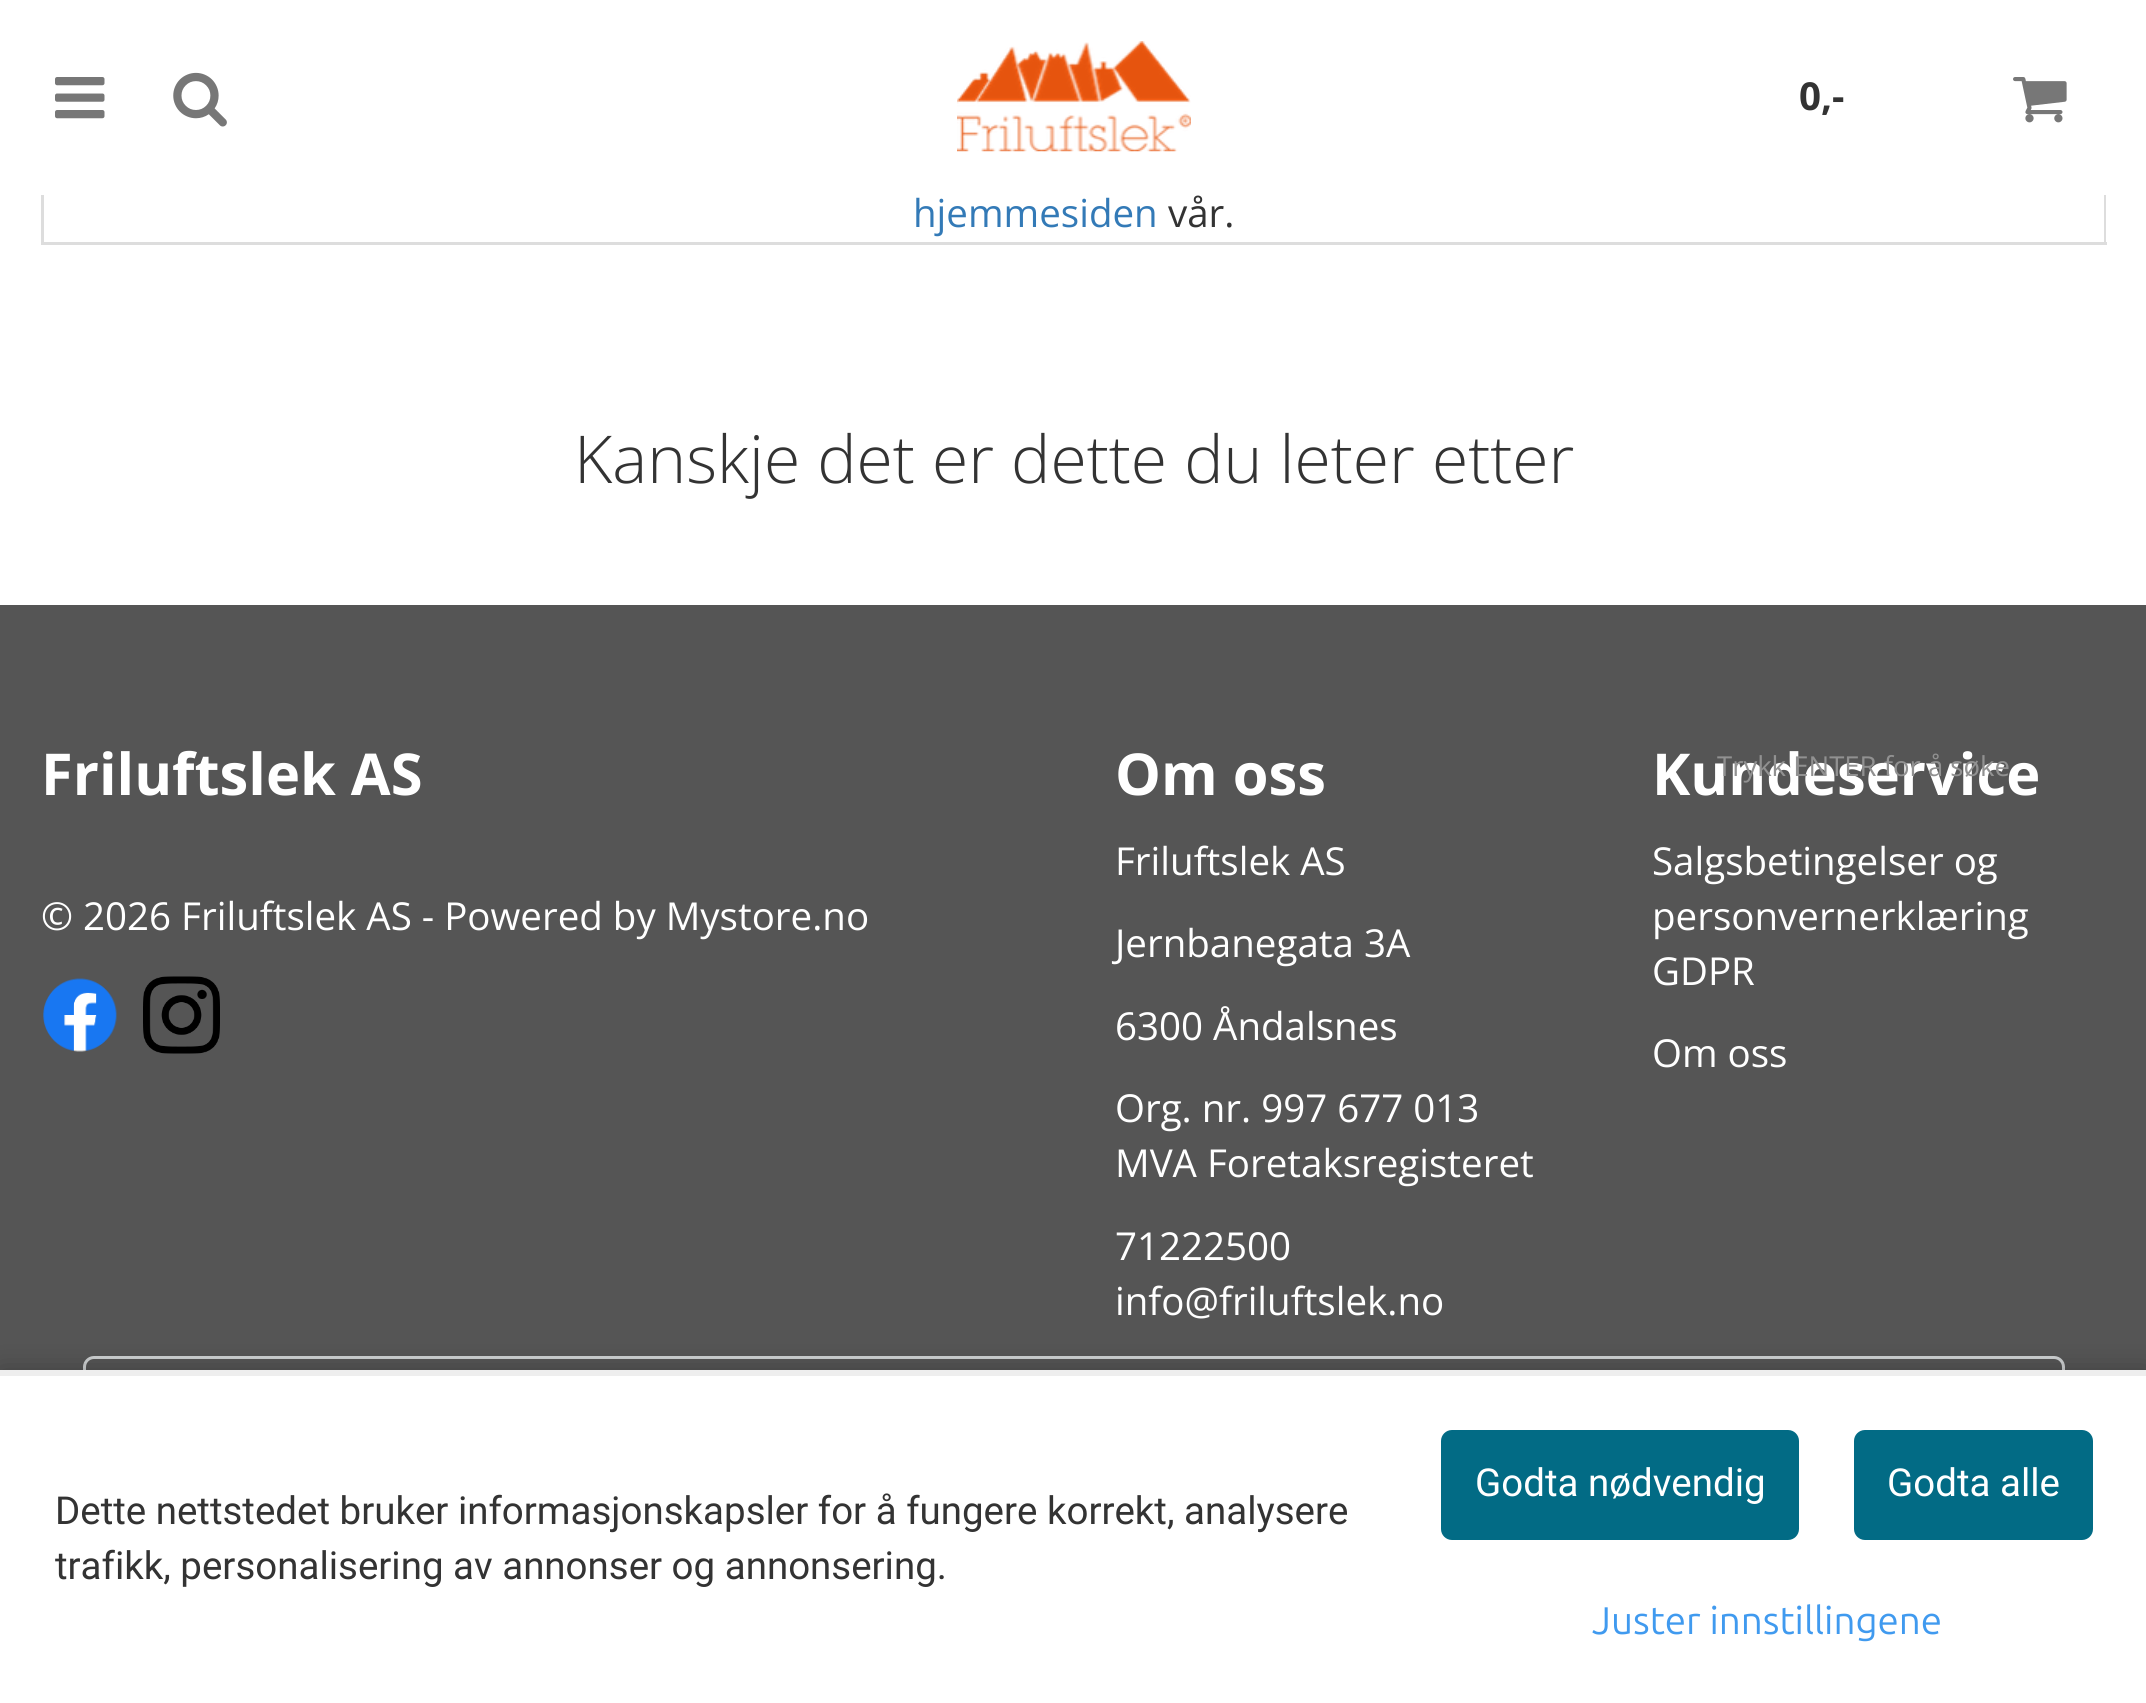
#include <cairo/cairo.h>
#include <math.h>
#include <stddef.h>


static void rounded_rect(cairo_t *cr, double x, double y, double w, double h, double r) {
  cairo_new_sub_path(cr);
  cairo_arc(cr, x + w - r, y + h - r, r, 0, M_PI / 2);
  cairo_arc(cr, x + r, y + h - r, r, M_PI / 2, M_PI);
  cairo_arc(cr, x + r, y + r, r, M_PI, 1.5 * M_PI);
  cairo_arc(cr, x + w - r, y + r, r, 1.5 * M_PI, 2 * M_PI);
  cairo_close_path(cr);
}

static void draw_shadow(cairo_t *cr, double x, double y, double w, double h, double r, double blur, double alpha) {
  cairo_push_group_with_content(cr, CAIRO_CONTENT_ALPHA);
  cairo_set_operator(cr, CAIRO_OPERATOR_SOURCE);
  for (int i = 15; i >= -15 && fmin(w, h) + blur * i / 3 > 0; i -= 2) {
    double e = blur * i / 6;
    cairo_set_source_rgba(cr, 0, 0, 0, alpha * erfc((i - 1) / 8.5) / 2);
    rounded_rect(cr, x - e, y - e, w + 2 * e, h + 2 * e, fmax(0, fmin(r + e + blur * .6, fmin(w, h) / 2 + e)));
    cairo_fill(cr);
  }
  cairo_pattern_t *soft = cairo_pop_group(cr);
  cairo_mask(cr, soft);
  cairo_pattern_destroy(soft);
}

static void draw_image(cairo_t *cr, const char *path, double x, double y, double w, double h) {
  cairo_surface_t *image = cairo_image_surface_create_from_png(path);
  cairo_save(cr);
  cairo_set_source_surface(cr, image, x, y);
  cairo_rectangle(cr, x, y, w, h);
  cairo_fill(cr);
  cairo_restore(cr);
  cairo_surface_destroy(image);
}

static void draw(cairo_t *cr) {
  cairo_set_source_rgb(cr, 1, 1, 1);
  cairo_paint(cr);
  cairo_set_source_rgb(cr, 221 / 255.0, 221 / 255.0, 221 / 255.0);
  cairo_new_path(cr);
  cairo_move_to(cr, 2106, -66);
  cairo_line_to(cr, 2106, 245);
  cairo_line_to(cr, 2104, 242);
  cairo_line_to(cr, 2104, -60);
  cairo_close_path(cr);
  cairo_fill(cr);
  cairo_rectangle(cr, 41, 242, 2066, 3);
  cairo_fill(cr);
  cairo_new_path(cr);
  cairo_move_to(cr, 41, 245);
  cairo_line_to(cr, 41, -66);
  cairo_line_to(cr, 44, -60);
  cairo_line_to(cr, 44, 242);
  cairo_close_path(cr);
  cairo_fill(cr);
  cairo_set_source_rgb(cr, 1, 1, 1);
  cairo_new_path(cr);
  cairo_move_to(cr, 8, 0);
  cairo_line_to(cr, 2140, 0);
  cairo_curve_to(cr, 2144.5, 0, 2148, 3.5, 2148, 8);
  cairo_line_to(cr, 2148, 195);
  cairo_line_to(cr, 0, 195);
  cairo_line_to(cr, 0, 8);
  cairo_curve_to(cr, 0, 3.5, 3.5, 0, 8, 0);
  cairo_close_path(cr);
  cairo_fill(cr);
  draw_image(cr, "images/1.png", 55, 77, 50, 42);
  draw_image(cr, "images/2.png", 173, 72, 54, 55);
  draw_image(cr, "images/3.png", 957, 41, 234, 111);
  draw_image(cr, "images/4.png", 2013, 77, 54, 46);
  cairo_set_source_rgb(cr, 85 / 255.0, 85 / 255.0, 85 / 255.0);
  cairo_rectangle(cr, 0, 605, 2146, 765);
  cairo_fill(cr);
  draw_image(cr, "images/5.png", 43, 978, 74, 74);
  draw_image(cr, "images/6.png", 143, 976, 77, 78);
  rounded_rect(cr, 84.5, 1357.5, 1979, 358, 9.5);
  cairo_set_source_rgb(cr, 205 / 255.0, 208 / 255.0, 209 / 255.0);
  cairo_set_line_width(cr, 3);
  cairo_stroke(cr);
  cairo_set_source_rgb(cr, 0, 0, 0);
  draw_shadow(cr, 0, 1370, 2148, 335, 0, 14, 0.25);
  cairo_set_source_rgb(cr, 1, 1, 1);
  cairo_rectangle(cr, 0, 1376, 2146, 327);
  cairo_fill(cr);
  cairo_set_source_rgb(cr, 238 / 255.0, 238 / 255.0, 238 / 255.0);
  cairo_rectangle(cr, 0, 1370, 2146, 6);
  cairo_fill(cr);
  cairo_set_source_rgb(cr, 2 / 255.0, 107 / 255.0, 133 / 255.0);
  rounded_rect(cr, 1441, 1430, 358, 110, 11);
  cairo_fill(cr);
  rounded_rect(cr, 1854, 1430, 239, 110, 11);
  cairo_fill(cr);
  cairo_select_font_face(cr, "Open Sans", CAIRO_FONT_SLANT_NORMAL, CAIRO_FONT_WEIGHT_BOLD);
  cairo_set_font_size(cr, 38.5);
  cairo_set_source_rgb(cr, 51 / 255.0, 51 / 255.0, 51 / 255.0);
  cairo_move_to(cr, 1799, 110);
  cairo_show_text(cr, "0,-");
  cairo_select_font_face(cr, "Open Sans", CAIRO_FONT_SLANT_NORMAL, CAIRO_FONT_WEIGHT_NORMAL);
  cairo_set_source_rgb(cr, 51 / 255.0, 122 / 255.0, 183 / 255.0);
  cairo_move_to(cr, 913, 227);
  cairo_show_text(cr, "hjemmesiden");
  cairo_set_source_rgb(cr, 51 / 255.0, 51 / 255.0, 51 / 255.0);
  cairo_move_to(cr, 1168, 227);
  cairo_show_text(cr, "vår.");
  cairo_select_font_face(cr, "Open Sans Light", CAIRO_FONT_SLANT_NORMAL, CAIRO_FONT_WEIGHT_NORMAL);
  cairo_set_font_size(cr, 66);
  cairo_move_to(cr, 574, 483);
  cairo_show_text(cr, "Kanskje det er dette du leter etter");
  cairo_select_font_face(cr, "Open Sans", CAIRO_FONT_SLANT_NORMAL, CAIRO_FONT_WEIGHT_BOLD);
  cairo_set_font_size(cr, 57.75);
  cairo_set_source_rgb(cr, 1, 1, 1);
  cairo_move_to(cr, 41, 795);
  cairo_show_text(cr, "Friluftslek AS");
  cairo_select_font_face(cr, "Open Sans", CAIRO_FONT_SLANT_NORMAL, CAIRO_FONT_WEIGHT_NORMAL);
  cairo_set_font_size(cr, 38.5);
  cairo_move_to(cr, 41, 930);
  cairo_show_text(cr, "© 2026 Friluftslek AS - Powered by Mystore.no");
  cairo_select_font_face(cr, "Open Sans", CAIRO_FONT_SLANT_NORMAL, CAIRO_FONT_WEIGHT_BOLD);
  cairo_set_font_size(cr, 57.75);
  cairo_move_to(cr, 1115, 795);
  cairo_show_text(cr, "Om oss");
  cairo_select_font_face(cr, "Open Sans", CAIRO_FONT_SLANT_NORMAL, CAIRO_FONT_WEIGHT_NORMAL);
  cairo_set_font_size(cr, 38.5);
  cairo_move_to(cr, 1115, 875);
  cairo_show_text(cr, "Friluftslek AS");
  cairo_move_to(cr, 1115, 957);
  cairo_show_text(cr, "Jernbanegata 3A");
  cairo_move_to(cr, 1115, 1040);
  cairo_show_text(cr, "6300 Åndalsnes");
  cairo_move_to(cr, 1115, 1122);
  cairo_show_text(cr, "Org. nr. 997 677 013");
  cairo_move_to(cr, 1115, 1177);
  cairo_show_text(cr, "MVA Foretaksregisteret");
  cairo_move_to(cr, 1115, 1260);
  cairo_show_text(cr, "71222500");
  cairo_move_to(cr, 1115, 1315);
  cairo_show_text(cr, "info@friluftslek.no");
  cairo_select_font_face(cr, "Open Sans", CAIRO_FONT_SLANT_NORMAL, CAIRO_FONT_WEIGHT_BOLD);
  cairo_set_font_size(cr, 57.75);
  cairo_move_to(cr, 1652, 795);
  cairo_show_text(cr, "Kundeservice");
  cairo_select_font_face(cr, "Open Sans", CAIRO_FONT_SLANT_NORMAL, CAIRO_FONT_WEIGHT_NORMAL);
  cairo_set_font_size(cr, 38.5);
  cairo_move_to(cr, 1652, 875);
  cairo_show_text(cr, "Salgsbetingelser og");
  cairo_move_to(cr, 1652, 930);
  cairo_show_text(cr, "personvernerklæring");
  cairo_move_to(cr, 1652, 985);
  cairo_show_text(cr, "GDPR");
  cairo_move_to(cr, 1652, 1067);
  cairo_show_text(cr, "Om oss");
  cairo_set_font_size(cr, 27.5);
  cairo_set_source_rgb(cr, 145 / 255.0, 145 / 255.0, 145 / 255.0);
  cairo_move_to(cr, 1717, 776);
  cairo_show_text(cr, "Trykk ENTER for å søke");
  cairo_select_font_face(cr, "Roboto", CAIRO_FONT_SLANT_NORMAL, CAIRO_FONT_WEIGHT_NORMAL);
  cairo_set_font_size(cr, 38.5);
  cairo_set_source_rgb(cr, 51 / 255.0, 51 / 255.0, 51 / 255.0);
  cairo_move_to(cr, 55, 1524);
  cairo_show_text(cr, "Dette nettstedet bruker informasjonskapsler for å fungere korrekt, analysere");
  cairo_move_to(cr, 55, 1579);
  cairo_show_text(cr, "trafikk, personalisering av annonser og annonsering.");
  cairo_set_source_rgb(cr, 1, 1, 1);
  cairo_move_to(cr, 1475, 1496);
  cairo_show_text(cr, "Godta nødvendig");
  cairo_move_to(cr, 1887, 1496);
  cairo_show_text(cr, "Godta alle");
  cairo_select_font_face(cr, "Ubuntu", CAIRO_FONT_SLANT_NORMAL, CAIRO_FONT_WEIGHT_NORMAL);
  cairo_set_source_rgb(cr, 64 / 255.0, 154 / 255.0, 239 / 255.0);
  cairo_move_to(cr, 1592, 1634);
  cairo_show_text(cr, "Juster innstillingene");
}

int main(void) {
  cairo_surface_t *surface = cairo_image_surface_create(CAIRO_FORMAT_RGB24, 2146, 1703);
  cairo_t *cr = cairo_create(surface);
  cairo_font_options_t *options = cairo_font_options_create();
  cairo_font_options_set_hint_metrics(options, CAIRO_HINT_METRICS_OFF);
  cairo_font_options_set_hint_style(options, CAIRO_HINT_STYLE_NONE);
  cairo_set_font_options(cr, options);
  cairo_set_miter_limit(cr, 4);
  draw(cr);
  cairo_surface_write_to_png(surface, "out.png");
  cairo_font_options_destroy(options);
  cairo_destroy(cr);
  cairo_surface_destroy(surface);
  return 0;
}
